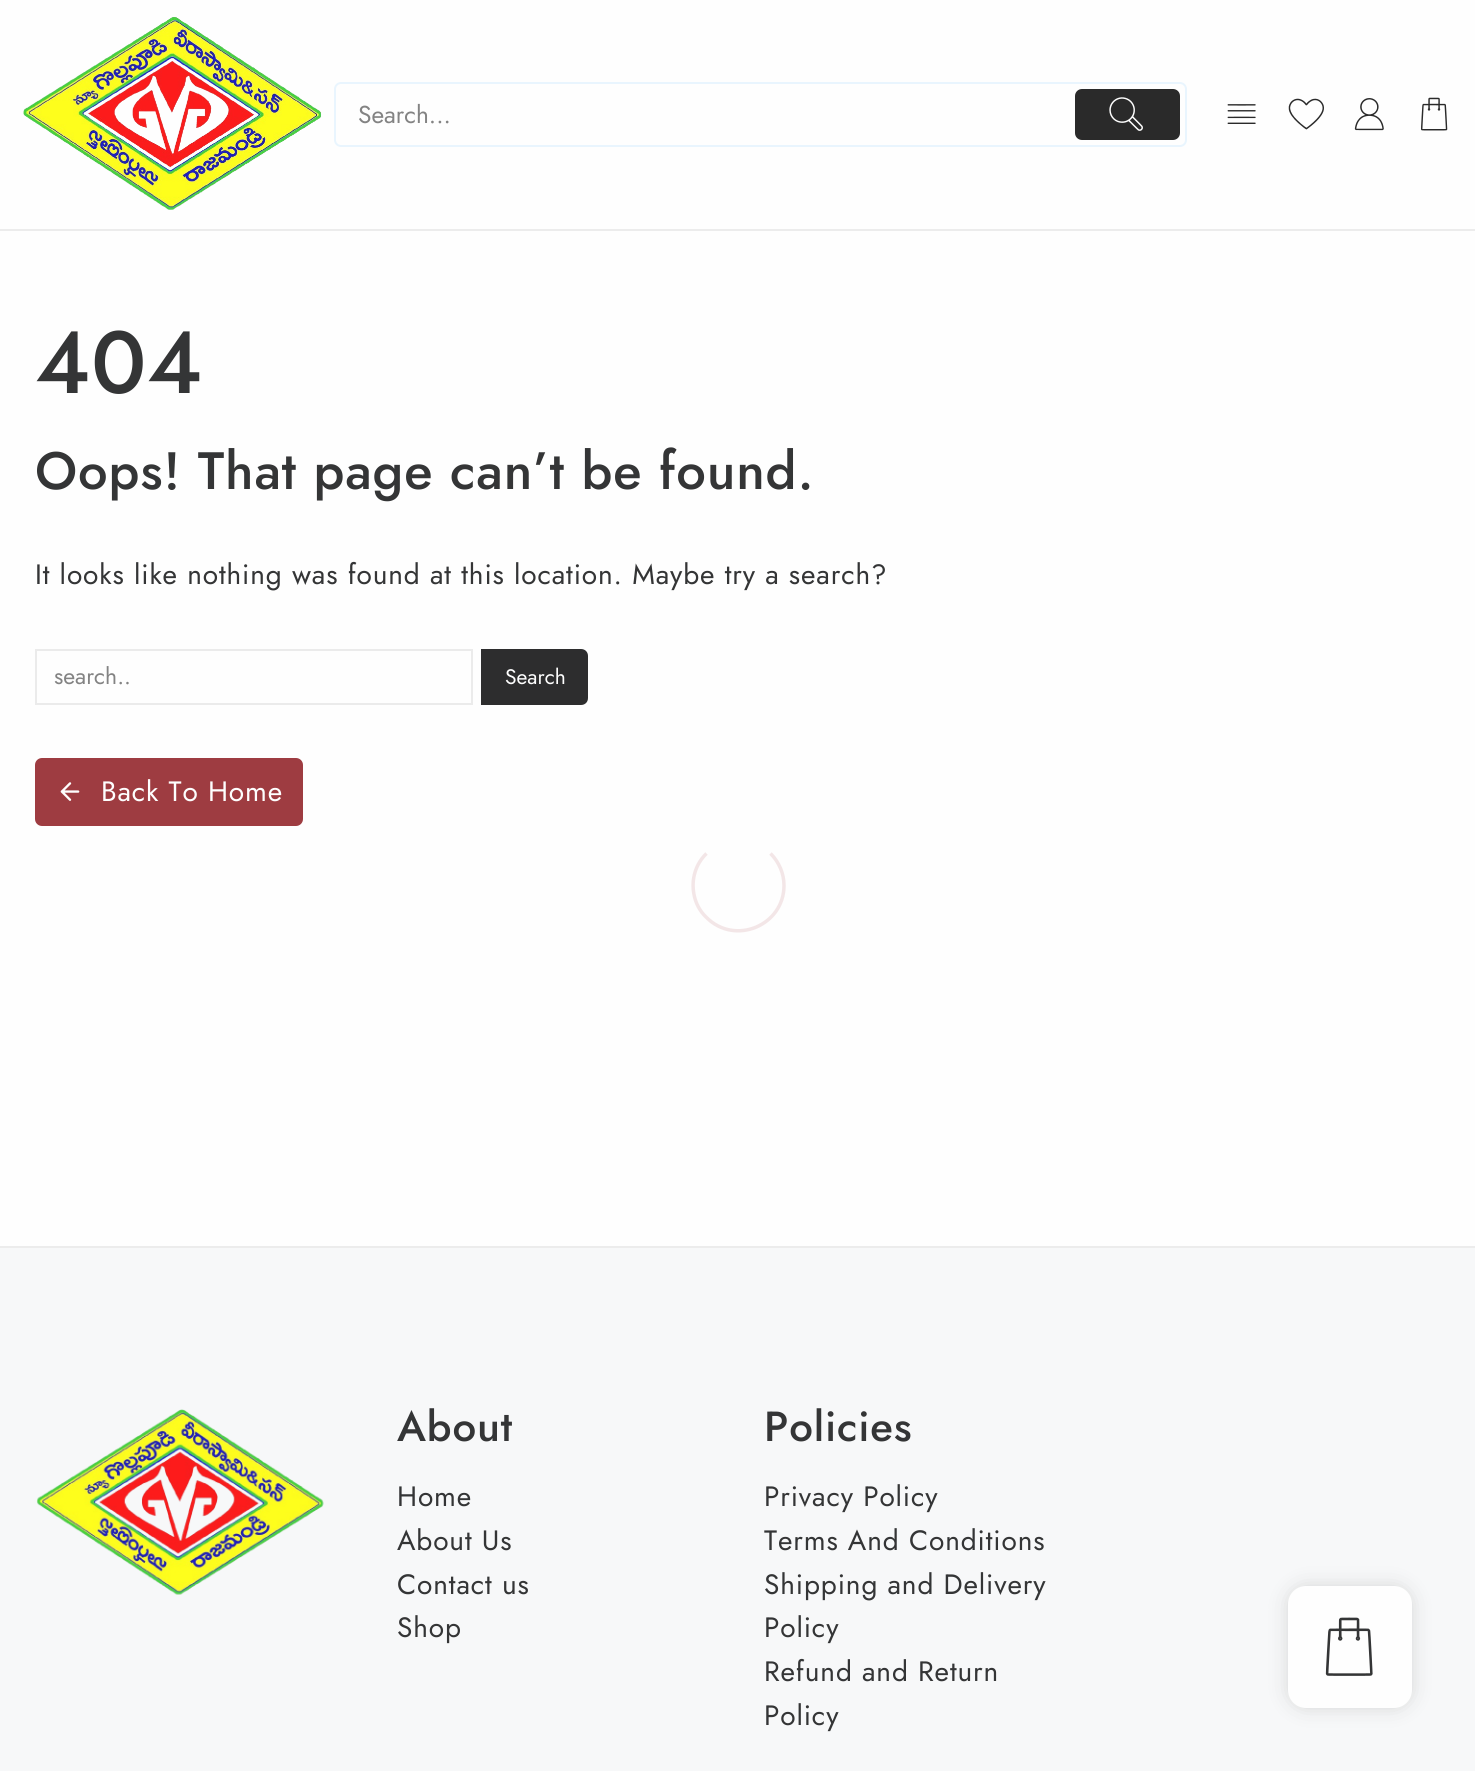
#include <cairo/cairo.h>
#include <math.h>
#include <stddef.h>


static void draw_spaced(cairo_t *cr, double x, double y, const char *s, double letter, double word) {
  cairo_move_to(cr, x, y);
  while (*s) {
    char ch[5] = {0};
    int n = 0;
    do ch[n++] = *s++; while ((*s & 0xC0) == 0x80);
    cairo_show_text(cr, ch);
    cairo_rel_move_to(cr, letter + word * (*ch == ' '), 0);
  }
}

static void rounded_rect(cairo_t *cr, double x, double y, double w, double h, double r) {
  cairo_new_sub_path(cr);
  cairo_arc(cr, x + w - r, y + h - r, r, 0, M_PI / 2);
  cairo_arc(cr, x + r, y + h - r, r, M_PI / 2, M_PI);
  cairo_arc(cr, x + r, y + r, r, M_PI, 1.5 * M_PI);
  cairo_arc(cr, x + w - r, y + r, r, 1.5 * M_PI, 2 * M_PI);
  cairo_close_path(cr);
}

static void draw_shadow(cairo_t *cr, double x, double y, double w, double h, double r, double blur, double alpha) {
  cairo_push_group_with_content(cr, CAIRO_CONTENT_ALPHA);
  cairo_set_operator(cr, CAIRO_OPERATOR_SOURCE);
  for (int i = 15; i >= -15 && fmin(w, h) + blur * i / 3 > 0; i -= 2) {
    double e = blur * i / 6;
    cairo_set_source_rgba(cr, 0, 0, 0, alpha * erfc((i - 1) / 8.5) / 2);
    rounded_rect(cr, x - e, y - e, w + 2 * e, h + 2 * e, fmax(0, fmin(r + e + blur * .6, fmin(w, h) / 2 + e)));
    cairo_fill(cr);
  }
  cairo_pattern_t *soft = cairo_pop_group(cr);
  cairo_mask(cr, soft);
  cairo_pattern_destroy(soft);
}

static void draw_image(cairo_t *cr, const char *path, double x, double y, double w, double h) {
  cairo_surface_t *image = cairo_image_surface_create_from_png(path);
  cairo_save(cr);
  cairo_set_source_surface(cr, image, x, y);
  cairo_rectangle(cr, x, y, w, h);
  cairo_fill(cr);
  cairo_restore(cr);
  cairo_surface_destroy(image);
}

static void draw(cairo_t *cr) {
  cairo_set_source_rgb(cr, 254 / 255.0, 254 / 255.0, 254 / 255.0);
  cairo_paint(cr);
  cairo_set_source_rgb(cr, 236 / 255.0, 236 / 255.0, 236 / 255.0);
  cairo_rectangle(cr, 0, 229, 1475, 2);
  cairo_fill(cr);
  draw_image(cr, "images/1.png", 23, 17, 299, 193);
  rounded_rect(cr, 335, 83, 851, 63, 6);
  cairo_set_source_rgb(cr, 233 / 255.0, 245 / 255.0, 254 / 255.0);
  cairo_stroke(cr);
  cairo_set_source_rgb(cr, 42 / 255.0, 42 / 255.0, 42 / 255.0);
  rounded_rect(cr, 1075, 89, 105, 51, 7);
  cairo_fill(cr);
  draw_image(cr, "images/2.png", 1109, 97, 34, 34);
  draw_image(cr, "images/3.png", 1227, 104, 29, 20);
  draw_image(cr, "images/4.png", 1288, 98, 36, 32);
  draw_image(cr, "images/5.png", 1354, 98, 30, 33);
  draw_image(cr, "images/6.png", 1421, 97, 27, 34);
  cairo_rectangle(cr, 36, 650, 436, 54);
  cairo_set_source_rgb(cr, 235 / 255.0, 235 / 255.0, 235 / 255.0);
  cairo_stroke(cr);
  cairo_set_source_rgb(cr, 45 / 255.0, 45 / 255.0, 46 / 255.0);
  cairo_new_path(cr);
  cairo_move_to(cr, 482, 650);
  cairo_line_to(cr, 581, 650);
  cairo_curve_to(cr, 584.5, 650, 587, 652.5, 587, 656);
  cairo_line_to(cr, 587, 698);
  cairo_curve_to(cr, 587, 701.5, 584.5, 704, 581, 704);
  cairo_line_to(cr, 482, 704);
  cairo_close_path(cr);
  cairo_fill_preserve(cr);
  cairo_stroke(cr);
  cairo_set_source_rgb(cr, 158 / 255.0, 60 / 255.0, 65 / 255.0);
  rounded_rect(cr, 35, 758, 268, 68, 7);
  cairo_fill(cr);
  draw_image(cr, "images/7.png", 60, 782, 20, 19);
  cairo_set_source_rgb(cr, 236 / 255.0, 236 / 255.0, 236 / 255.0);
  cairo_rectangle(cr, 0, 1246, 1475, 2);
  cairo_fill(cr);
  cairo_set_source_rgb(cr, 247 / 255.0, 248 / 255.0, 249 / 255.0);
  cairo_rectangle(cr, 0, 1248, 1475, 523);
  cairo_fill(cr);
  draw_image(cr, "images/8.png", 36, 1409, 288, 186);
  cairo_new_path(cr);
  cairo_move_to(cr, 770.5, 853.5);
  cairo_curve_to(cr, 779, 862, 784, 873.5, 784, 885.5);
  cairo_curve_to(cr, 784, 925.5, 735, 946, 706.5, 917.5);
  cairo_curve_to(cr, 700, 911.5, 695.5, 903, 694, 894.5);
  cairo_curve_to(cr, 691, 879.5, 695.5, 864, 706.5, 853.5);
  cairo_set_source_rgb(cr, 243 / 255.0, 230 / 255.0, 231 / 255.0);
  cairo_set_line_width(cr, 3.5);
  cairo_stroke(cr);
  cairo_set_source_rgb(cr, 190 / 255.0, 190 / 255.0, 190 / 255.0);
  draw_shadow(cr, 1288, 1586, 124, 122, 18, 9, 0.6);
  cairo_set_source_rgb(cr, 254 / 255.0, 254 / 255.0, 254 / 255.0);
  rounded_rect(cr, 1288, 1586, 124, 122, 18);
  cairo_fill(cr);
  draw_image(cr, "images/9.png", 1325, 1617, 48, 59);
  cairo_select_font_face(cr, "Jost", CAIRO_FONT_SLANT_NORMAL, CAIRO_FONT_WEIGHT_NORMAL);
  cairo_set_font_size(cr, 24.5);
  cairo_set_source_rgb(cr, 131 / 255.0, 131 / 255.0, 131 / 255.0);
  cairo_move_to(cr, 358, 123);
  cairo_show_text(cr, "Search...");
  cairo_select_font_face(cr, "Jost Medium", CAIRO_FONT_SLANT_NORMAL, CAIRO_FONT_WEIGHT_NORMAL);
  cairo_set_font_size(cr, 88);
  cairo_set_source_rgb(cr, 52 / 255.0, 53 / 255.0, 54 / 255.0);
  draw_spaced(cr, 35, 393, "404", 0.88, 0);
  cairo_set_font_size(cr, 52.5);
  draw_spaced(cr, 35, 489, "Oops! That page can’t be found.", 0.88, 0);
  cairo_select_font_face(cr, "Jost", CAIRO_FONT_SLANT_NORMAL, CAIRO_FONT_WEIGHT_NORMAL);
  cairo_set_font_size(cr, 28);
  draw_spaced(cr, 35, 584, "It looks like nothing was found at this location. Maybe try a search?", 0.88, 0);
  cairo_set_font_size(cr, 23);
  cairo_set_source_rgb(cr, 131 / 255.0, 131 / 255.0, 131 / 255.0);
  cairo_move_to(cr, 54, 684);
  cairo_show_text(cr, "search..");
  cairo_set_font_size(cr, 21);
  cairo_set_source_rgb(cr, 254 / 255.0, 254 / 255.0, 254 / 255.0);
  cairo_move_to(cr, 505, 684);
  cairo_show_text(cr, "Search");
  cairo_set_font_size(cr, 28);
  draw_spaced(cr, 101, 801, "Back To Home", 0.88, 0);
  cairo_select_font_face(cr, "Jost Medium", CAIRO_FONT_SLANT_NORMAL, CAIRO_FONT_WEIGHT_NORMAL);
  cairo_set_font_size(cr, 42);
  cairo_set_source_rgb(cr, 52 / 255.0, 53 / 255.0, 54 / 255.0);
  draw_spaced(cr, 397, 1441, "About", 0.88, 0);
  cairo_select_font_face(cr, "Jost", CAIRO_FONT_SLANT_NORMAL, CAIRO_FONT_WEIGHT_NORMAL);
  cairo_set_font_size(cr, 28);
  draw_spaced(cr, 397, 1506, "Home", 0.88, 0);
  draw_spaced(cr, 397, 1550, "About Us", 0.88, 0);
  draw_spaced(cr, 397, 1594, "Contact us", 0.88, 0);
  draw_spaced(cr, 397, 1637, "Shop", 0.88, 0);
  cairo_select_font_face(cr, "Jost Medium", CAIRO_FONT_SLANT_NORMAL, CAIRO_FONT_WEIGHT_NORMAL);
  cairo_set_font_size(cr, 42);
  draw_spaced(cr, 764, 1441, "Policies", 0.88, 0);
  cairo_select_font_face(cr, "Jost", CAIRO_FONT_SLANT_NORMAL, CAIRO_FONT_WEIGHT_NORMAL);
  cairo_set_font_size(cr, 28);
  draw_spaced(cr, 764, 1506, "Privacy Policy", 0.88, 0);
  draw_spaced(cr, 764, 1550, "Terms And Conditions", 0.88, 0);
  draw_spaced(cr, 764, 1594, "Shipping and Delivery", 0.88, 0);
  draw_spaced(cr, 764, 1637, "Policy", 0.88, 0);
  draw_spaced(cr, 764, 1681, "Refund and Return", 0.88, 0);
  draw_spaced(cr, 764, 1725, "Policy", 0.88, 0);
}

int main(void) {
  cairo_surface_t *surface = cairo_image_surface_create(CAIRO_FORMAT_RGB24, 1475, 1771);
  cairo_t *cr = cairo_create(surface);
  cairo_font_options_t *options = cairo_font_options_create();
  cairo_font_options_set_hint_metrics(options, CAIRO_HINT_METRICS_OFF);
  cairo_font_options_set_hint_style(options, CAIRO_HINT_STYLE_NONE);
  cairo_set_font_options(cr, options);
  cairo_set_miter_limit(cr, 4);
  draw(cr);
  cairo_surface_write_to_png(surface, "out.png");
  cairo_font_options_destroy(options);
  cairo_destroy(cr);
  cairo_surface_destroy(surface);
  return 0;
}
